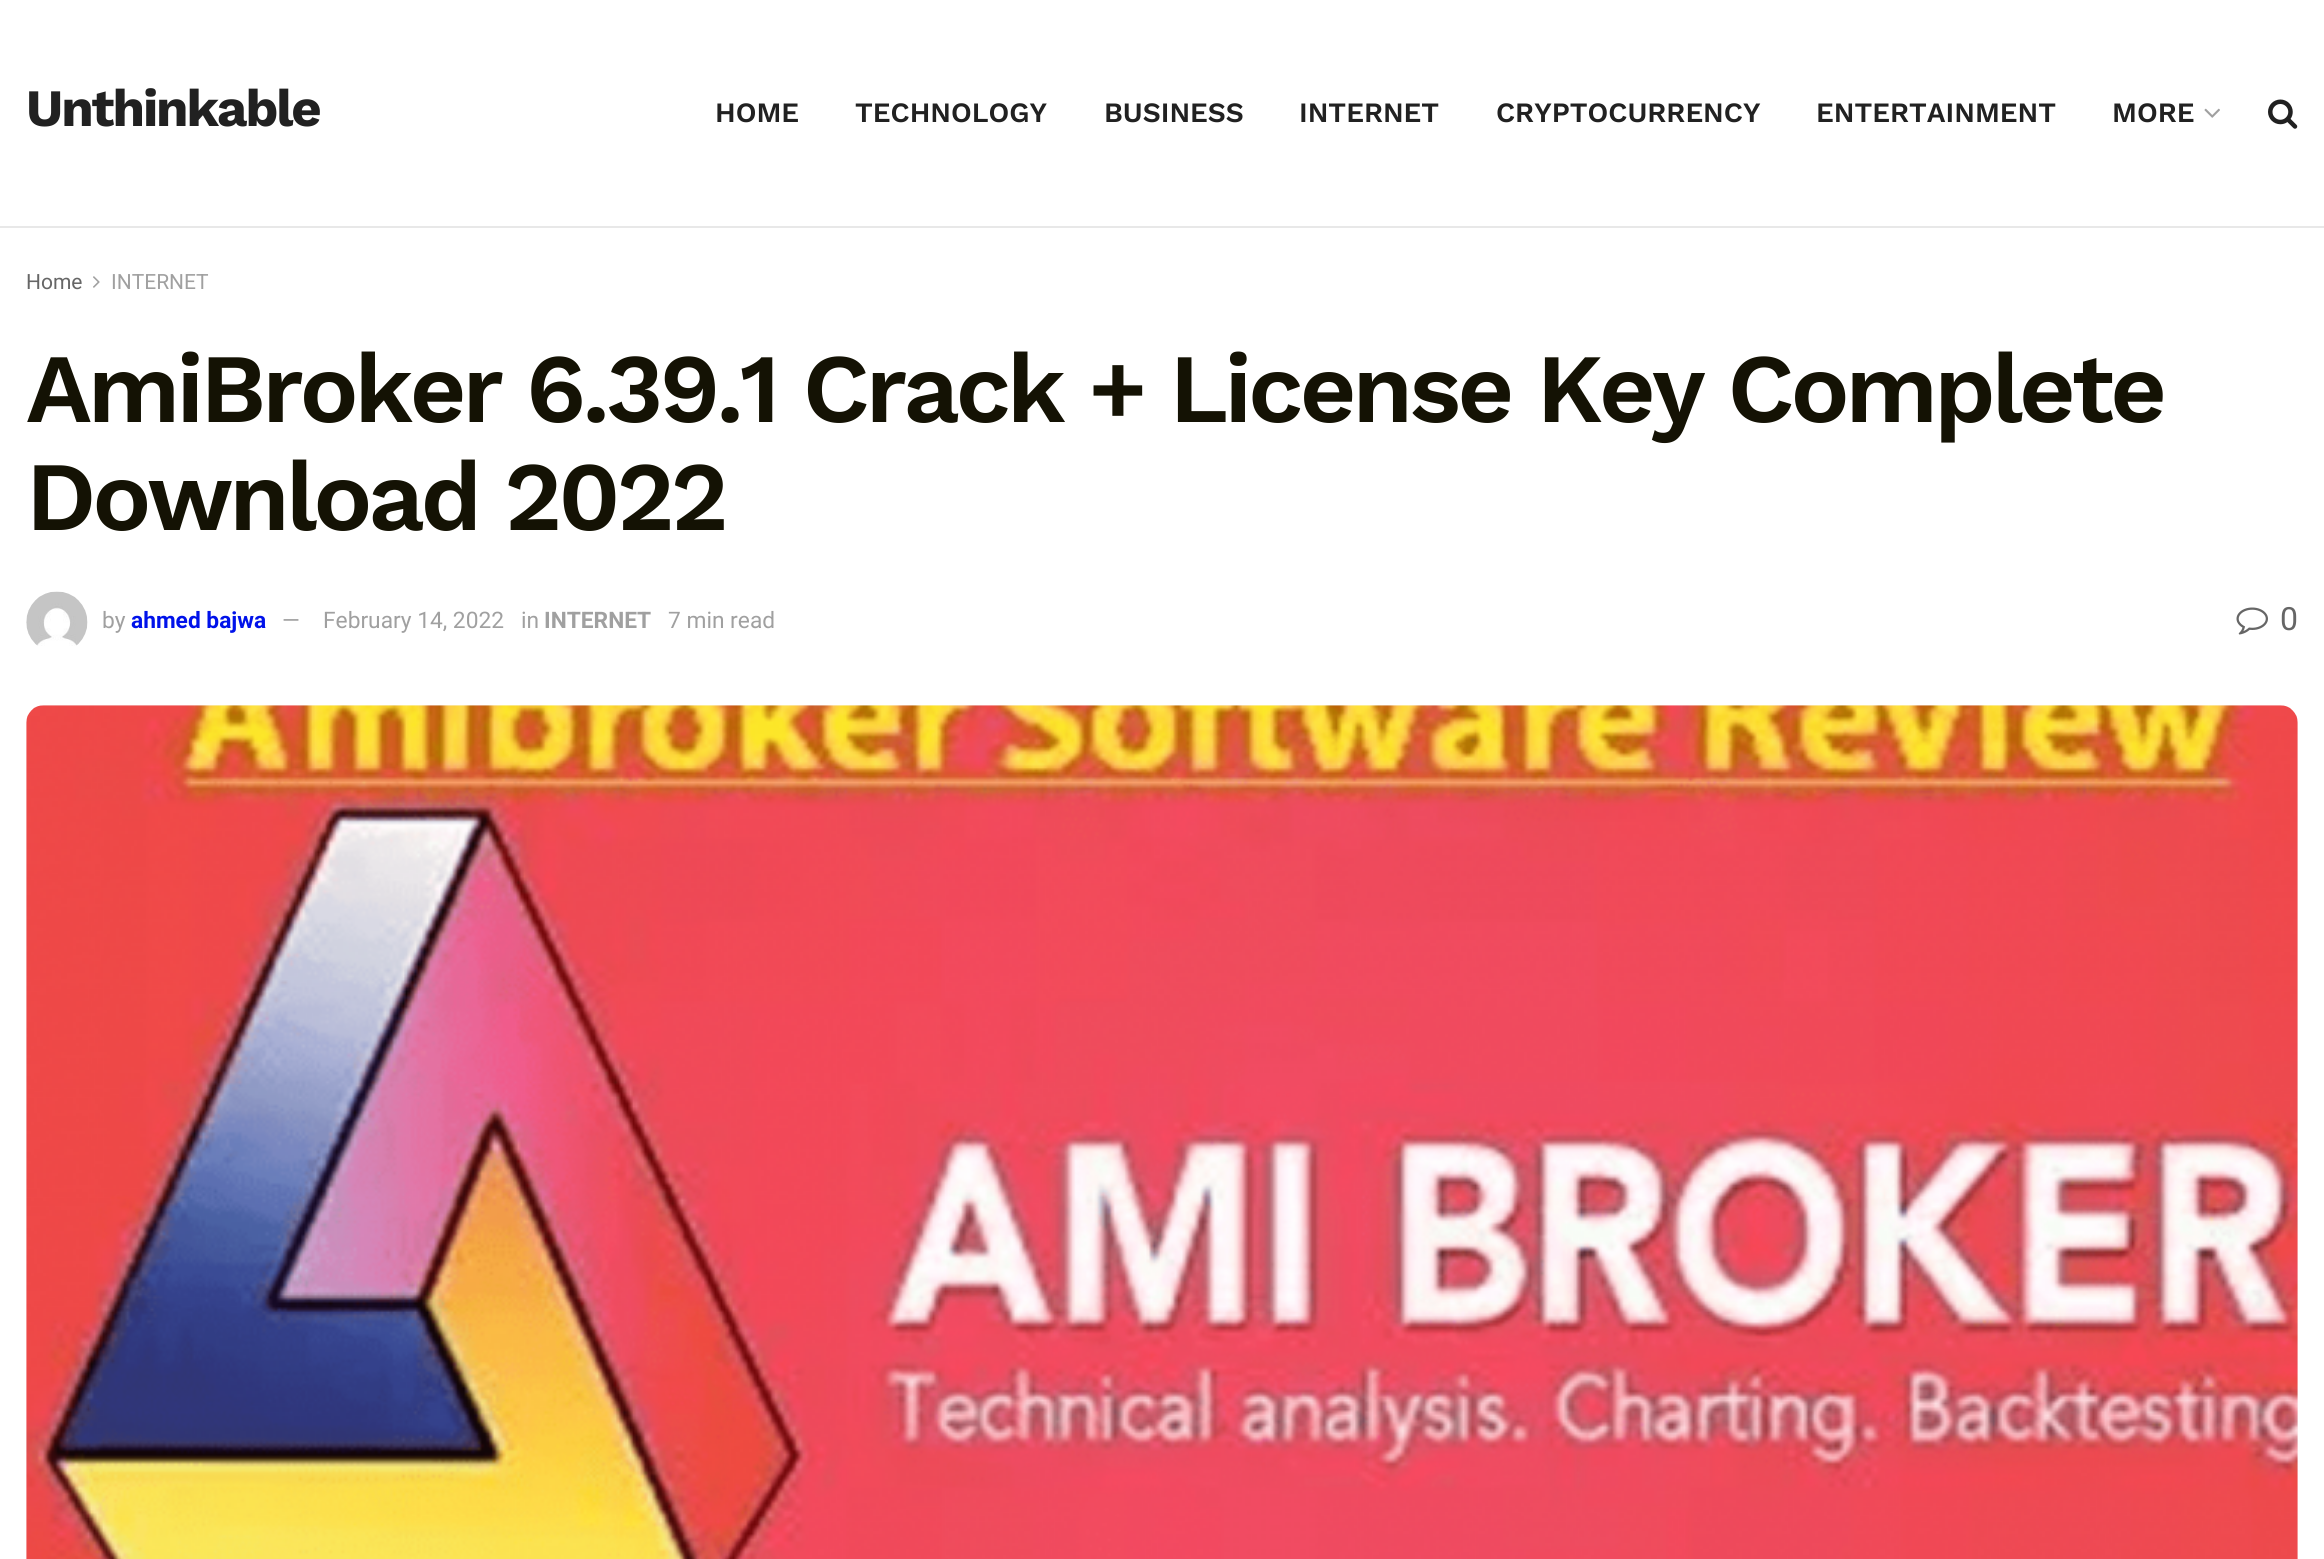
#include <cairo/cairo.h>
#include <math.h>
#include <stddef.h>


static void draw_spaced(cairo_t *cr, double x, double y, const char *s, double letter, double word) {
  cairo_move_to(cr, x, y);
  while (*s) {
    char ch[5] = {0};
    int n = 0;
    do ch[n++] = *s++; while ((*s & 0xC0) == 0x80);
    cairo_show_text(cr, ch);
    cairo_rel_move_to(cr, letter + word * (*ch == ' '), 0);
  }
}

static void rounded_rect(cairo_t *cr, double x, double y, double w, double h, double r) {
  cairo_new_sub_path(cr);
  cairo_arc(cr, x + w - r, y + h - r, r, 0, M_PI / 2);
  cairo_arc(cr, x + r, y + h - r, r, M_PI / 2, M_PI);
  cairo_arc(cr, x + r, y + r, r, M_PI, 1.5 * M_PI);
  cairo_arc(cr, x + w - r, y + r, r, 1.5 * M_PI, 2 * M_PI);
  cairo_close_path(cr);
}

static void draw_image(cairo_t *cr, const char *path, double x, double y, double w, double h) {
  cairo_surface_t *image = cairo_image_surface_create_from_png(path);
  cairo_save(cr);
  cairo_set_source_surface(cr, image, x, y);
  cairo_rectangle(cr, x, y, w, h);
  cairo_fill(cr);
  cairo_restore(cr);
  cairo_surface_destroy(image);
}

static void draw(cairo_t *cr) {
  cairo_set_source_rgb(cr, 1, 1, 1);
  cairo_paint(cr);
  cairo_set_source_rgb(cr, 232 / 255.0, 232 / 255.0, 232 / 255.0);
  cairo_rectangle(cr, 0, 226, 2324, 2);
  cairo_fill(cr);
  draw_image(cr, "images/1.png", 2204, 108, 16, 10);
  draw_image(cr, "images/2.png", 2268, 99, 30, 30);
  draw_image(cr, "images/3.png", 93, 276, 7, 12);
  draw_image(cr, "images/4.png", 26, 591, 62, 55);
  draw_image(cr, "images/5.png", 2236, 607, 32, 28);
  cairo_set_source_rgb(cr, 247 / 255.0, 247 / 255.0, 247 / 255.0);
  rounded_rect(cr, 26, 705, 2272, 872, 18);
  cairo_fill(cr);
  draw_image(cr, "images/6.png", 26, 705, 2272, 854);
  cairo_select_font_face(cr, "Work Sans", CAIRO_FONT_SLANT_NORMAL, CAIRO_FONT_WEIGHT_BOLD);
  cairo_set_font_size(cr, 52.5);
  cairo_set_source_rgb(cr, 33 / 255.0, 33 / 255.0, 33 / 255.0);
  draw_spaced(cr, 26, 126, "Unthinkable", -2.1, 0);
  cairo_select_font_face(cr, "Work Sans SemiBold", CAIRO_FONT_SLANT_NORMAL, CAIRO_FONT_WEIGHT_NORMAL);
  cairo_set_font_size(cr, 28);
  cairo_move_to(cr, 715, 122);
  cairo_show_text(cr, "HOME");
  cairo_move_to(cr, 855, 122);
  cairo_show_text(cr, "TECHNOLOGY");
  cairo_move_to(cr, 1104, 122);
  cairo_show_text(cr, "BUSINESS");
  cairo_move_to(cr, 1299, 122);
  cairo_show_text(cr, "INTERNET");
  cairo_move_to(cr, 1496, 122);
  cairo_show_text(cr, "CRYPTOCURRENCY");
  cairo_move_to(cr, 1816, 122);
  cairo_show_text(cr, "ENTERTAINMENT");
  cairo_move_to(cr, 2112, 122);
  cairo_show_text(cr, "MORE");
  cairo_select_font_face(cr, "Roboto", CAIRO_FONT_SLANT_NORMAL, CAIRO_FONT_WEIGHT_NORMAL);
  cairo_set_font_size(cr, 21);
  cairo_set_source_rgb(cr, 102 / 255.0, 102 / 255.0, 102 / 255.0);
  cairo_move_to(cr, 26, 289);
  cairo_show_text(cr, "Home");
  cairo_set_source_rgb(cr, 160 / 255.0, 160 / 255.0, 160 / 255.0);
  cairo_move_to(cr, 111, 289);
  cairo_show_text(cr, "INTERNET");
  cairo_select_font_face(cr, "Work Sans SemiBold", CAIRO_FONT_SLANT_NORMAL, CAIRO_FONT_WEIGHT_NORMAL);
  cairo_set_font_size(cr, 98);
  cairo_set_source_rgb(cr, 20 / 255.0, 18 / 255.0, 4 / 255.0);
  draw_spaced(cr, 26, 422, "AmiBroker 6.39.1 Crack + License Key Complete", -3.9, 0);
  draw_spaced(cr, 26, 530, "Download 2022", -3.9, 0);
  cairo_select_font_face(cr, "Roboto", CAIRO_FONT_SLANT_NORMAL, CAIRO_FONT_WEIGHT_NORMAL);
  cairo_set_font_size(cr, 22.75);
  cairo_set_source_rgb(cr, 160 / 255.0, 160 / 255.0, 160 / 255.0);
  cairo_move_to(cr, 102, 628);
  cairo_show_text(cr, "by");
  cairo_select_font_face(cr, "Roboto", CAIRO_FONT_SLANT_NORMAL, CAIRO_FONT_WEIGHT_BOLD);
  cairo_set_source_rgb(cr, 0, 18 / 255.0, 234 / 255.0);
  cairo_move_to(cr, 131, 628);
  cairo_show_text(cr, "ahmed bajwa");
  cairo_select_font_face(cr, "Roboto", CAIRO_FONT_SLANT_NORMAL, CAIRO_FONT_WEIGHT_NORMAL);
  cairo_set_source_rgb(cr, 160 / 255.0, 160 / 255.0, 160 / 255.0);
  cairo_move_to(cr, 282, 628);
  cairo_show_text(cr, "—");
  cairo_move_to(cr, 323, 628);
  cairo_show_text(cr, "February 14, 2022");
  cairo_move_to(cr, 521, 628);
  cairo_show_text(cr, "in");
  cairo_select_font_face(cr, "Roboto", CAIRO_FONT_SLANT_NORMAL, CAIRO_FONT_WEIGHT_BOLD);
  cairo_move_to(cr, 544, 628);
  cairo_show_text(cr, "INTERNET");
  cairo_select_font_face(cr, "Roboto", CAIRO_FONT_SLANT_NORMAL, CAIRO_FONT_WEIGHT_NORMAL);
  cairo_move_to(cr, 668, 628);
  cairo_show_text(cr, "7 min read");
  cairo_set_font_size(cr, 32);
  cairo_set_source_rgb(cr, 102 / 255.0, 102 / 255.0, 102 / 255.0);
  cairo_move_to(cr, 2280, 630);
  cairo_show_text(cr, "0");
}

int main(void) {
  cairo_surface_t *surface = cairo_image_surface_create(CAIRO_FORMAT_RGB24, 2324, 1559);
  cairo_t *cr = cairo_create(surface);
  cairo_font_options_t *options = cairo_font_options_create();
  cairo_font_options_set_hint_metrics(options, CAIRO_HINT_METRICS_OFF);
  cairo_font_options_set_hint_style(options, CAIRO_HINT_STYLE_NONE);
  cairo_set_font_options(cr, options);
  cairo_set_miter_limit(cr, 4);
  draw(cr);
  cairo_surface_write_to_png(surface, "out.png");
  cairo_font_options_destroy(options);
  cairo_destroy(cr);
  cairo_surface_destroy(surface);
  return 0;
}
